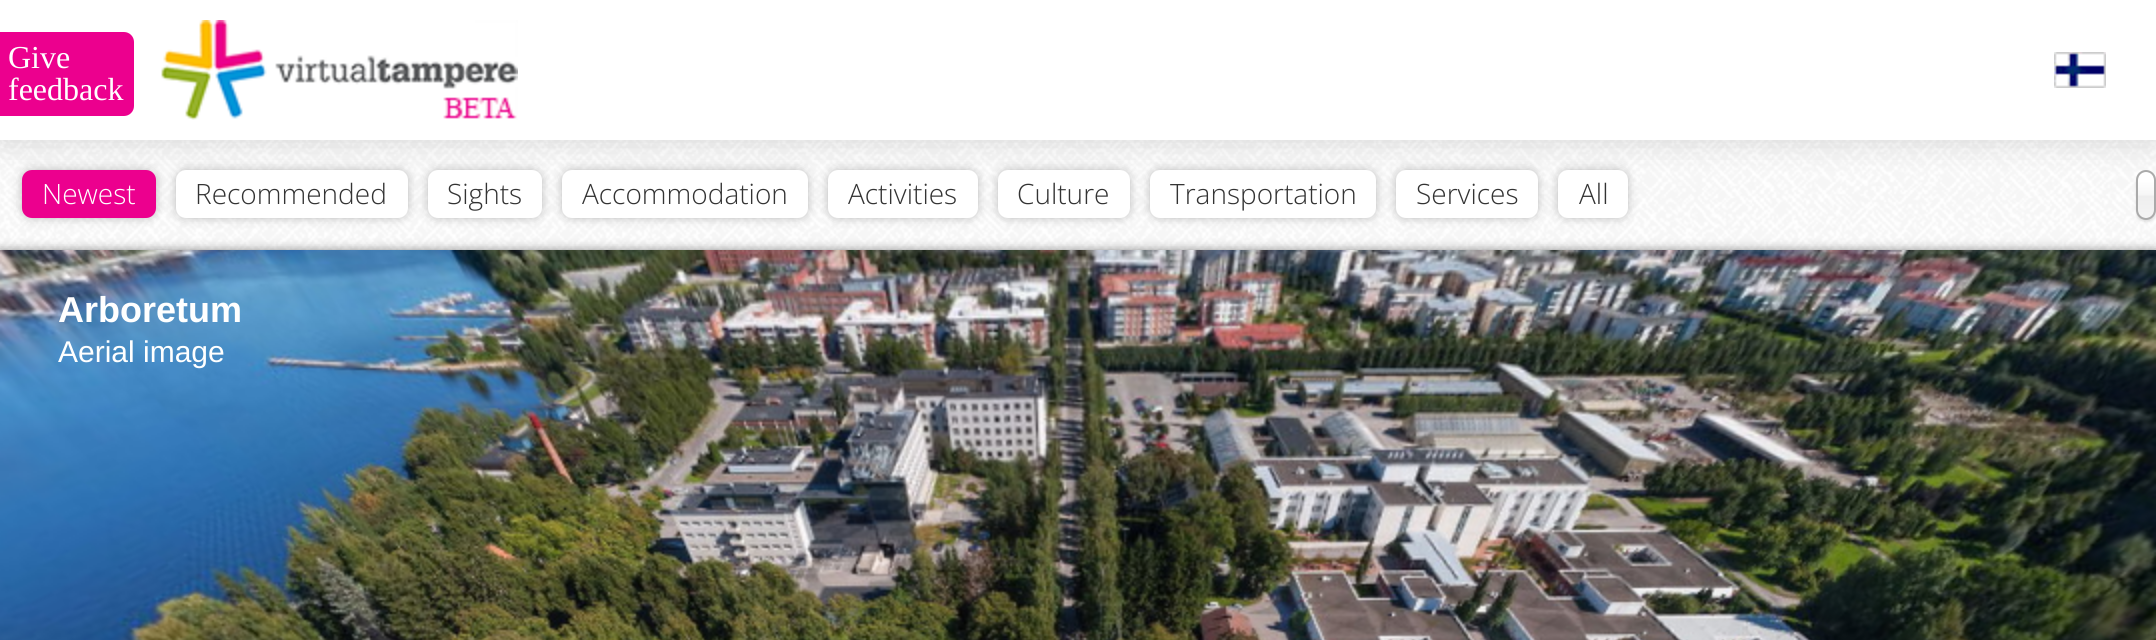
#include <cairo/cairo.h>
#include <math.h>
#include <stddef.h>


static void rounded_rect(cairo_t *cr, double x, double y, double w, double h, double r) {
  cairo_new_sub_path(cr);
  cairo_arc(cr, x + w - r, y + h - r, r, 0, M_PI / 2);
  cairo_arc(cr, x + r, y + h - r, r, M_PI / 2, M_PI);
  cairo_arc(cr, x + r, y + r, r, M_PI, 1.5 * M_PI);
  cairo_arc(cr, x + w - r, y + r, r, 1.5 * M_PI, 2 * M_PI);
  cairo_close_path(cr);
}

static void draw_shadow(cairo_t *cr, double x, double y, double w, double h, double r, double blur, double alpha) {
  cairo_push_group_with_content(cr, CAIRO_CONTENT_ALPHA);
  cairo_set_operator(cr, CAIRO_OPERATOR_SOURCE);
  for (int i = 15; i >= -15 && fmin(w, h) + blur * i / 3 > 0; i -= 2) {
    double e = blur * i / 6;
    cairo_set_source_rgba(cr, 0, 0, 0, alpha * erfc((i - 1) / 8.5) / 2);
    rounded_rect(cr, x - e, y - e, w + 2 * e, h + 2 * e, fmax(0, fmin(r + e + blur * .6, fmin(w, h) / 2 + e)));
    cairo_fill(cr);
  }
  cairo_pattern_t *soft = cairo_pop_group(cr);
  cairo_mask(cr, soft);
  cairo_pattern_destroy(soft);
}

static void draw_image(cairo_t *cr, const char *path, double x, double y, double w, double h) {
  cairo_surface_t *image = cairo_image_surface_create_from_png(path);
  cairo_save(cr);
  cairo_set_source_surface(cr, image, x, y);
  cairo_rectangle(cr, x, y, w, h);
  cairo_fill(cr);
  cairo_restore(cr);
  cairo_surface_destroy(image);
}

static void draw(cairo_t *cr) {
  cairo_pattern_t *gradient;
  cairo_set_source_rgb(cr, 1, 1, 1);
  cairo_paint(cr);
  draw_image(cr, "images/1.png", 0, 140, 2156, 110);
  cairo_set_source_rgb(cr, 0, 0, 0);
  draw_shadow(cr, 0, 0, 2156, 140, 0, 17, 0.15);
  cairo_set_source_rgb(cr, 1, 1, 1);
  cairo_rectangle(cr, 0, 0, 2156, 140);
  cairo_fill(cr);
  draw_image(cr, "images/2.png", 161, 20, 357, 100);
  draw_image(cr, "images/3.png", 2054, 52, 52, 36);
  cairo_set_source_rgb(cr, 236 / 255.0, 0, 142 / 255.0);
  cairo_new_path(cr);
  cairo_move_to(cr, -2, 32);
  cairo_line_to(cr, 124, 32);
  cairo_curve_to(cr, 129.5, 32, 134, 36.5, 134, 42);
  cairo_line_to(cr, 134, 106);
  cairo_curve_to(cr, 134, 111.5, 129.5, 116, 124, 116);
  cairo_line_to(cr, -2, 116);
  cairo_close_path(cr);
  cairo_fill(cr);
  cairo_set_source_rgb(cr, 0, 0, 0);
  draw_shadow(cr, 22, 170, 134, 48, 10, 5, 0.25);
  cairo_set_source_rgb(cr, 236 / 255.0, 0, 142 / 255.0);
  rounded_rect(cr, 22, 170, 134, 48, 10);
  cairo_fill(cr);
  cairo_set_source_rgb(cr, 0, 0, 0);
  draw_shadow(cr, 176, 170, 232, 48, 10, 5, 0.25);
  cairo_set_source_rgb(cr, 1, 1, 1);
  rounded_rect(cr, 176, 170, 232, 48, 10);
  cairo_fill(cr);
  cairo_set_source_rgb(cr, 0, 0, 0);
  draw_shadow(cr, 428, 170, 114, 48, 10, 5, 0.25);
  cairo_set_source_rgb(cr, 1, 1, 1);
  rounded_rect(cr, 428, 170, 114, 48, 10);
  cairo_fill(cr);
  cairo_set_source_rgb(cr, 0, 0, 0);
  draw_shadow(cr, 562, 170, 246, 48, 10, 5, 0.25);
  cairo_set_source_rgb(cr, 1, 1, 1);
  rounded_rect(cr, 562, 170, 246, 48, 10);
  cairo_fill(cr);
  cairo_set_source_rgb(cr, 0, 0, 0);
  draw_shadow(cr, 828, 170, 150, 48, 10, 5, 0.25);
  cairo_set_source_rgb(cr, 1, 1, 1);
  rounded_rect(cr, 828, 170, 150, 48, 10);
  cairo_fill(cr);
  cairo_set_source_rgb(cr, 0, 0, 0);
  draw_shadow(cr, 998, 170, 132, 48, 10, 5, 0.25);
  cairo_set_source_rgb(cr, 1, 1, 1);
  rounded_rect(cr, 998, 170, 132, 48, 10);
  cairo_fill(cr);
  cairo_set_source_rgb(cr, 0, 0, 0);
  draw_shadow(cr, 1150, 170, 226, 48, 10, 5, 0.25);
  cairo_set_source_rgb(cr, 1, 1, 1);
  rounded_rect(cr, 1150, 170, 226, 48, 10);
  cairo_fill(cr);
  cairo_set_source_rgb(cr, 0, 0, 0);
  draw_shadow(cr, 1396, 170, 142, 48, 10, 5, 0.25);
  cairo_set_source_rgb(cr, 1, 1, 1);
  rounded_rect(cr, 1396, 170, 142, 48, 10);
  cairo_fill(cr);
  cairo_set_source_rgb(cr, 0, 0, 0);
  draw_shadow(cr, 1558, 170, 70, 48, 10, 5, 0.25);
  cairo_set_source_rgb(cr, 1, 1, 1);
  rounded_rect(cr, 1558, 170, 70, 48, 10);
  cairo_fill(cr);
  cairo_set_source_rgb(cr, 0, 0, 0);
  draw_shadow(cr, 2136, 172, 20, 50, 10, 1, 0.1);
  gradient = cairo_pattern_create_linear(2146, 172, 2146, 218);
  cairo_pattern_add_color_stop_rgba(gradient, 0.2, 1, 1, 1, 1);
  cairo_pattern_add_color_stop_rgba(gradient, 0.5, 246 / 255.0, 246 / 255.0, 246 / 255.0, 1);
  cairo_pattern_add_color_stop_rgba(gradient, 0.52, 238 / 255.0, 238 / 255.0, 238 / 255.0, 1);
  cairo_pattern_add_color_stop_rgba(gradient, 1, 244 / 255.0, 244 / 255.0, 244 / 255.0, 1);
  cairo_set_source(cr, gradient);
  cairo_pattern_destroy(gradient);
  rounded_rect(cr, 2138, 172, 16, 46, 8);
  cairo_fill(cr);
  rounded_rect(cr, 2137, 171, 18, 48, 9);
  cairo_set_source_rgb(cr, 170 / 255.0, 170 / 255.0, 170 / 255.0);
  cairo_stroke(cr);
  cairo_set_source_rgb(cr, 0, 0, 0);
  draw_shadow(cr, 0, 250, 2156, 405, 0, 5, 0.45);
  draw_image(cr, "images/4.png", 0, 250, 2156, 390);
  cairo_select_font_face(cr, "Liberation Serif", CAIRO_FONT_SLANT_NORMAL, CAIRO_FONT_WEIGHT_NORMAL);
  cairo_set_font_size(cr, 32);
  cairo_set_source_rgb(cr, 1, 1, 1);
  cairo_move_to(cr, 8, 68);
  cairo_show_text(cr, "Give");
  cairo_move_to(cr, 8, 100);
  cairo_show_text(cr, "feedback");
  cairo_select_font_face(cr, "Open Sans Light", CAIRO_FONT_SLANT_NORMAL, CAIRO_FONT_WEIGHT_NORMAL);
  cairo_set_font_size(cr, 28);
  cairo_move_to(cr, 42, 204);
  cairo_show_text(cr, "Newest");
  cairo_set_source_rgb(cr, 51 / 255.0, 51 / 255.0, 51 / 255.0);
  cairo_move_to(cr, 195, 204);
  cairo_show_text(cr, "Recommended");
  cairo_move_to(cr, 447, 204);
  cairo_show_text(cr, "Sights");
  cairo_move_to(cr, 582, 204);
  cairo_show_text(cr, "Accommodation");
  cairo_move_to(cr, 848, 204);
  cairo_show_text(cr, "Activities");
  cairo_move_to(cr, 1017, 204);
  cairo_show_text(cr, "Culture");
  cairo_move_to(cr, 1170, 204);
  cairo_show_text(cr, "Transportation");
  cairo_move_to(cr, 1416, 204);
  cairo_show_text(cr, "Services");
  cairo_move_to(cr, 1579, 204);
  cairo_show_text(cr, "All");
  cairo_select_font_face(cr, "Liberation Sans", CAIRO_FONT_SLANT_NORMAL, CAIRO_FONT_WEIGHT_BOLD);
  cairo_set_font_size(cr, 36);
  cairo_set_source_rgb(cr, 1, 1, 1);
  cairo_move_to(cr, 58, 322);
  cairo_show_text(cr, "Arboretum");
  cairo_select_font_face(cr, "Liberation Sans", CAIRO_FONT_SLANT_NORMAL, CAIRO_FONT_WEIGHT_NORMAL);
  cairo_set_font_size(cr, 30);
  cairo_move_to(cr, 58, 362);
  cairo_show_text(cr, "Aerial image");
}

int main(void) {
  cairo_surface_t *surface = cairo_image_surface_create(CAIRO_FORMAT_RGB24, 2156, 640);
  cairo_t *cr = cairo_create(surface);
  cairo_font_options_t *options = cairo_font_options_create();
  cairo_font_options_set_hint_metrics(options, CAIRO_HINT_METRICS_OFF);
  cairo_font_options_set_hint_style(options, CAIRO_HINT_STYLE_NONE);
  cairo_set_font_options(cr, options);
  cairo_set_miter_limit(cr, 4);
  draw(cr);
  cairo_surface_write_to_png(surface, "out.png");
  cairo_font_options_destroy(options);
  cairo_destroy(cr);
  cairo_surface_destroy(surface);
  return 0;
}
